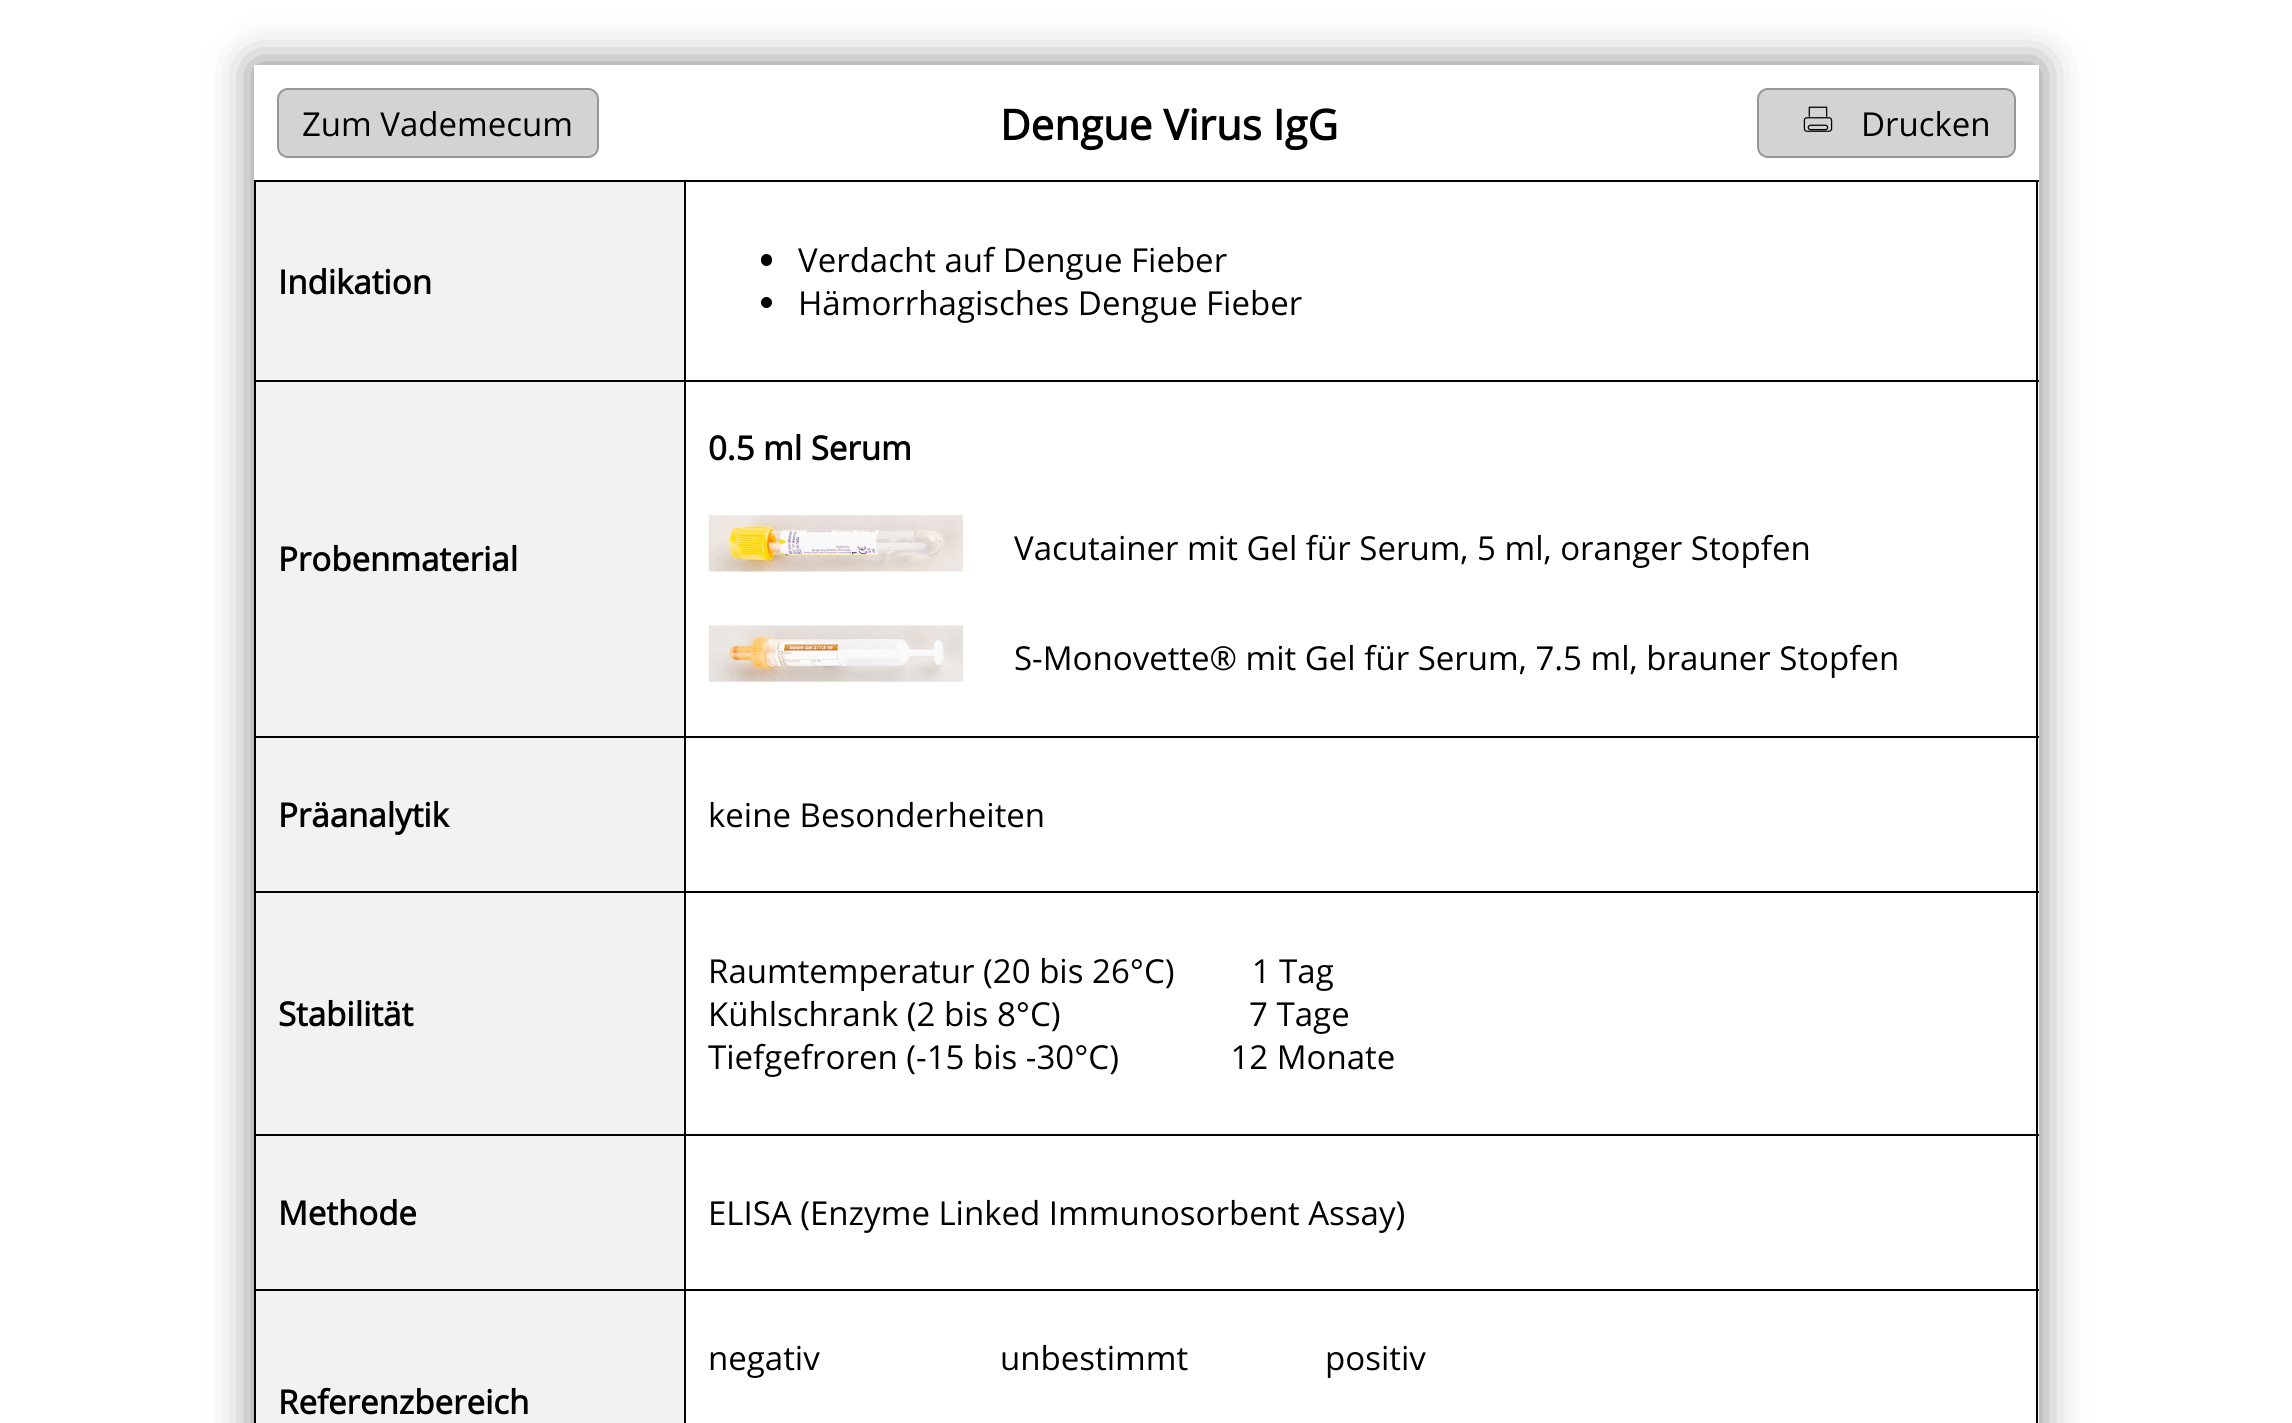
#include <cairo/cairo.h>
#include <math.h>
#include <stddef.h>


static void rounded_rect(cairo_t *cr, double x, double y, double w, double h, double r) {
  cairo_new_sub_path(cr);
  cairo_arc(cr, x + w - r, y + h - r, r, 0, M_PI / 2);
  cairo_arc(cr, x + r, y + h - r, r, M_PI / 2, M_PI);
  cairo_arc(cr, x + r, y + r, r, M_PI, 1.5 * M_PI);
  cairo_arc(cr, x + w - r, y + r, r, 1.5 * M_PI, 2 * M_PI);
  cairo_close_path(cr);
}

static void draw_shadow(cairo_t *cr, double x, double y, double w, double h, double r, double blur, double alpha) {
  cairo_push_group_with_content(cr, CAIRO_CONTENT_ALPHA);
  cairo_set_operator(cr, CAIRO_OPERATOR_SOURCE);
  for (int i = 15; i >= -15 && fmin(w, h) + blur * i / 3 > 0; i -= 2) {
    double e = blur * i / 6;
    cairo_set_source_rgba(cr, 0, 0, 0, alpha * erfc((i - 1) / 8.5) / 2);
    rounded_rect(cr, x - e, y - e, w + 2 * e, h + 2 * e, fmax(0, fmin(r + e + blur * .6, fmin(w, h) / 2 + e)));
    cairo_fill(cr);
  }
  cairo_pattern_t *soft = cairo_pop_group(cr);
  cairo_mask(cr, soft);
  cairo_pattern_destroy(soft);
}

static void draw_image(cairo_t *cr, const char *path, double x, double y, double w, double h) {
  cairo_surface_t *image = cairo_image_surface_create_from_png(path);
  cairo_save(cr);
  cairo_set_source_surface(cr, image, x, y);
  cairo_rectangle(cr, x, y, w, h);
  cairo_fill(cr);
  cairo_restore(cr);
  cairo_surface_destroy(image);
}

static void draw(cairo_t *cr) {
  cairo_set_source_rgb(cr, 1, 1, 1);
  cairo_paint(cr);
  cairo_set_source_rgb(cr, 0, 0, 0);
  draw_shadow(cr, 254, 65, 1785, 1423, 0, 21.5, 0.5);
  cairo_set_source_rgb(cr, 1, 1, 1);
  cairo_rectangle(cr, 254, 65, 1785, 1358);
  cairo_fill(cr);
  cairo_set_source_rgb(cr, 211 / 255.0, 211 / 255.0, 211 / 255.0);
  rounded_rect(cr, 278, 89, 320, 68, 10);
  cairo_fill_preserve(cr);
  cairo_set_source_rgb(cr, 150 / 255.0, 150 / 255.0, 150 / 255.0);
  cairo_stroke(cr);
  cairo_set_source_rgb(cr, 211 / 255.0, 211 / 255.0, 211 / 255.0);
  rounded_rect(cr, 1758, 89, 257, 68, 10);
  cairo_fill_preserve(cr);
  cairo_set_source_rgb(cr, 150 / 255.0, 150 / 255.0, 150 / 255.0);
  cairo_stroke(cr);
  draw_image(cr, "images/1.png", 1803, 106, 30, 26);
  cairo_set_source_rgb(cr, 242 / 255.0, 242 / 255.0, 242 / 255.0);
  cairo_rectangle(cr, 256, 182, 428, 198);
  cairo_fill(cr);
  cairo_set_source_rgb(cr, 0, 0, 0);
  cairo_rectangle(cr, 684, 180, 1355, 2);
  cairo_fill(cr);
  cairo_rectangle(cr, 684, 380, 1355, 2);
  cairo_fill(cr);
  cairo_rectangle(cr, 684, 736, 1355, 2);
  cairo_fill(cr);
  cairo_rectangle(cr, 684, 891, 1355, 2);
  cairo_fill(cr);
  cairo_rectangle(cr, 684, 1134, 1355, 2);
  cairo_fill(cr);
  cairo_rectangle(cr, 684, 1289, 1355, 2);
  cairo_fill(cr);
  cairo_rectangle(cr, 684, 1289, 2, 134);
  cairo_fill(cr);
  cairo_set_source_rgb(cr, 242 / 255.0, 242 / 255.0, 242 / 255.0);
  cairo_rectangle(cr, 256, 1136, 428, 287);
  cairo_fill(cr);
  cairo_set_source_rgb(cr, 0, 0, 0);
  cairo_rectangle(cr, 254, 1289, 432, 2);
  cairo_fill(cr);
  cairo_rectangle(cr, 684, 1134, 2, 158);
  cairo_fill(cr);
  cairo_rectangle(cr, 254, 1134, 432, 2);
  cairo_fill(cr);
  cairo_rectangle(cr, 684, 891, 2, 245);
  cairo_fill(cr);
  cairo_rectangle(cr, 254, 891, 432, 2);
  cairo_fill(cr);
  cairo_rectangle(cr, 684, 736, 2, 157);
  cairo_fill(cr);
  cairo_rectangle(cr, 254, 736, 432, 2);
  cairo_fill(cr);
  cairo_rectangle(cr, 684, 380, 2, 358);
  cairo_fill(cr);
  cairo_rectangle(cr, 254, 380, 432, 2);
  cairo_fill(cr);
  cairo_rectangle(cr, 684, 180, 2, 203);
  cairo_fill(cr);
  cairo_rectangle(cr, 254, 180, 432, 2);
  cairo_fill(cr);
  cairo_rectangle(cr, 254, 1289, 2, 134);
  cairo_fill(cr);
  cairo_rectangle(cr, 254, 1134, 2, 158);
  cairo_fill(cr);
  cairo_rectangle(cr, 254, 891, 2, 245);
  cairo_fill(cr);
  cairo_rectangle(cr, 254, 736, 2, 157);
  cairo_fill(cr);
  cairo_rectangle(cr, 254, 380, 2, 358);
  cairo_fill(cr);
  cairo_rectangle(cr, 254, 180, 2, 203);
  cairo_fill(cr);
  cairo_rectangle(cr, 2036, 1289, 2, 134);
  cairo_fill(cr);
  cairo_rectangle(cr, 2036, 1134, 2, 158);
  cairo_fill(cr);
  cairo_rectangle(cr, 2036, 891, 2, 245);
  cairo_fill(cr);
  cairo_rectangle(cr, 2036, 736, 2, 157);
  cairo_fill(cr);
  cairo_rectangle(cr, 2036, 380, 2, 358);
  cairo_fill(cr);
  cairo_rectangle(cr, 2036, 180, 2, 203);
  cairo_fill(cr);
  rounded_rect(cr, 761, 254, 11, 12, 5.5);
  cairo_fill(cr);
  cairo_arc(cr, 766.5, 302.5, 5.5, 0, 2 * M_PI);
  cairo_fill(cr);
  cairo_set_source_rgb(cr, 242 / 255.0, 242 / 255.0, 242 / 255.0);
  cairo_rectangle(cr, 256, 382, 428, 354);
  cairo_fill(cr);
  draw_image(cr, "images/2.png", 708, 515, 255, 57);
  draw_image(cr, "images/3.png", 708, 625, 255, 57);
  cairo_rectangle(cr, 256, 738, 428, 153);
  cairo_fill(cr);
  cairo_rectangle(cr, 256, 893, 428, 241);
  cairo_fill(cr);
  cairo_select_font_face(cr, "Open Sans", CAIRO_FONT_SLANT_NORMAL, CAIRO_FONT_WEIGHT_NORMAL);
  cairo_set_font_size(cr, 33);
  cairo_set_source_rgb(cr, 0, 0, 0);
  cairo_move_to(cr, 302, 136);
  cairo_show_text(cr, "Zum Vademecum");
  cairo_select_font_face(cr, "Open Sans", CAIRO_FONT_SLANT_NORMAL, CAIRO_FONT_WEIGHT_BOLD);
  cairo_set_font_size(cr, 42);
  cairo_move_to(cr, 1000, 140);
  cairo_show_text(cr, "Dengue Virus IgG");
  cairo_select_font_face(cr, "Open Sans", CAIRO_FONT_SLANT_NORMAL, CAIRO_FONT_WEIGHT_NORMAL);
  cairo_set_font_size(cr, 33);
  cairo_move_to(cr, 1861, 136);
  cairo_show_text(cr, "Drucken");
  cairo_select_font_face(cr, "Open Sans", CAIRO_FONT_SLANT_NORMAL, CAIRO_FONT_WEIGHT_BOLD);
  cairo_move_to(cr, 278, 294);
  cairo_show_text(cr, "Indikation");
  cairo_select_font_face(cr, "Open Sans", CAIRO_FONT_SLANT_NORMAL, CAIRO_FONT_WEIGHT_NORMAL);
  cairo_move_to(cr, 798, 272);
  cairo_show_text(cr, "Verdacht auf Dengue Fieber");
  cairo_move_to(cr, 798, 315);
  cairo_show_text(cr, "Hämorrhagisches Dengue Fieber");
  cairo_select_font_face(cr, "Open Sans", CAIRO_FONT_SLANT_NORMAL, CAIRO_FONT_WEIGHT_BOLD);
  cairo_move_to(cr, 278, 571);
  cairo_show_text(cr, "Probenmaterial");
  cairo_move_to(cr, 708, 460);
  cairo_show_text(cr, "0.5 ml Serum");
  cairo_select_font_face(cr, "Open Sans", CAIRO_FONT_SLANT_NORMAL, CAIRO_FONT_WEIGHT_NORMAL);
  cairo_move_to(cr, 1014, 560);
  cairo_show_text(cr, "Vacutainer mit Gel für Serum, 5 ml, oranger Stopfen");
  cairo_move_to(cr, 1014, 670);
  cairo_show_text(cr, "S-Monovette® mit Gel für Serum, 7.5 ml, brauner Stopfen");
  cairo_select_font_face(cr, "Open Sans", CAIRO_FONT_SLANT_NORMAL, CAIRO_FONT_WEIGHT_BOLD);
  cairo_move_to(cr, 278, 827);
  cairo_show_text(cr, "Präanalytik");
  cairo_select_font_face(cr, "Open Sans", CAIRO_FONT_SLANT_NORMAL, CAIRO_FONT_WEIGHT_NORMAL);
  cairo_move_to(cr, 708, 827);
  cairo_show_text(cr, "keine Besonderheiten");
  cairo_select_font_face(cr, "Open Sans", CAIRO_FONT_SLANT_NORMAL, CAIRO_FONT_WEIGHT_BOLD);
  cairo_move_to(cr, 278, 1026);
  cairo_show_text(cr, "Stabilität");
  cairo_select_font_face(cr, "Open Sans", CAIRO_FONT_SLANT_NORMAL, CAIRO_FONT_WEIGHT_NORMAL);
  cairo_move_to(cr, 708, 983);
  cairo_show_text(cr, "Raumtemperatur (20 bis 26°C)         1 Tag");
  cairo_move_to(cr, 708, 1026);
  cairo_show_text(cr, "Kühlschrank (2 bis 8°C)                      7 Tage");
  cairo_move_to(cr, 708, 1069);
  cairo_show_text(cr, "Tiefgefroren (-15 bis -30°C)             12 Monate");
  cairo_select_font_face(cr, "Open Sans", CAIRO_FONT_SLANT_NORMAL, CAIRO_FONT_WEIGHT_BOLD);
  cairo_move_to(cr, 278, 1225);
  cairo_show_text(cr, "Methode");
  cairo_select_font_face(cr, "Open Sans", CAIRO_FONT_SLANT_NORMAL, CAIRO_FONT_WEIGHT_NORMAL);
  cairo_move_to(cr, 708, 1225);
  cairo_show_text(cr, "ELISA (Enzyme Linked Immunosorbent Assay)");
  cairo_move_to(cr, 708, 1370);
  cairo_show_text(cr, "negativ");
  cairo_move_to(cr, 1000, 1370);
  cairo_show_text(cr, "unbestimmt");
  cairo_move_to(cr, 1325, 1370);
  cairo_show_text(cr, "positiv");
  cairo_select_font_face(cr, "Open Sans", CAIRO_FONT_SLANT_NORMAL, CAIRO_FONT_WEIGHT_BOLD);
  cairo_move_to(cr, 278, 1414);
  cairo_show_text(cr, "Referenzbereich");
}

int main(void) {
  cairo_surface_t *surface = cairo_image_surface_create(CAIRO_FORMAT_RGB24, 2292, 1423);
  cairo_t *cr = cairo_create(surface);
  cairo_font_options_t *options = cairo_font_options_create();
  cairo_font_options_set_hint_metrics(options, CAIRO_HINT_METRICS_OFF);
  cairo_font_options_set_hint_style(options, CAIRO_HINT_STYLE_NONE);
  cairo_set_font_options(cr, options);
  cairo_set_miter_limit(cr, 4);
  draw(cr);
  cairo_surface_write_to_png(surface, "out.png");
  cairo_font_options_destroy(options);
  cairo_destroy(cr);
  cairo_surface_destroy(surface);
  return 0;
}
